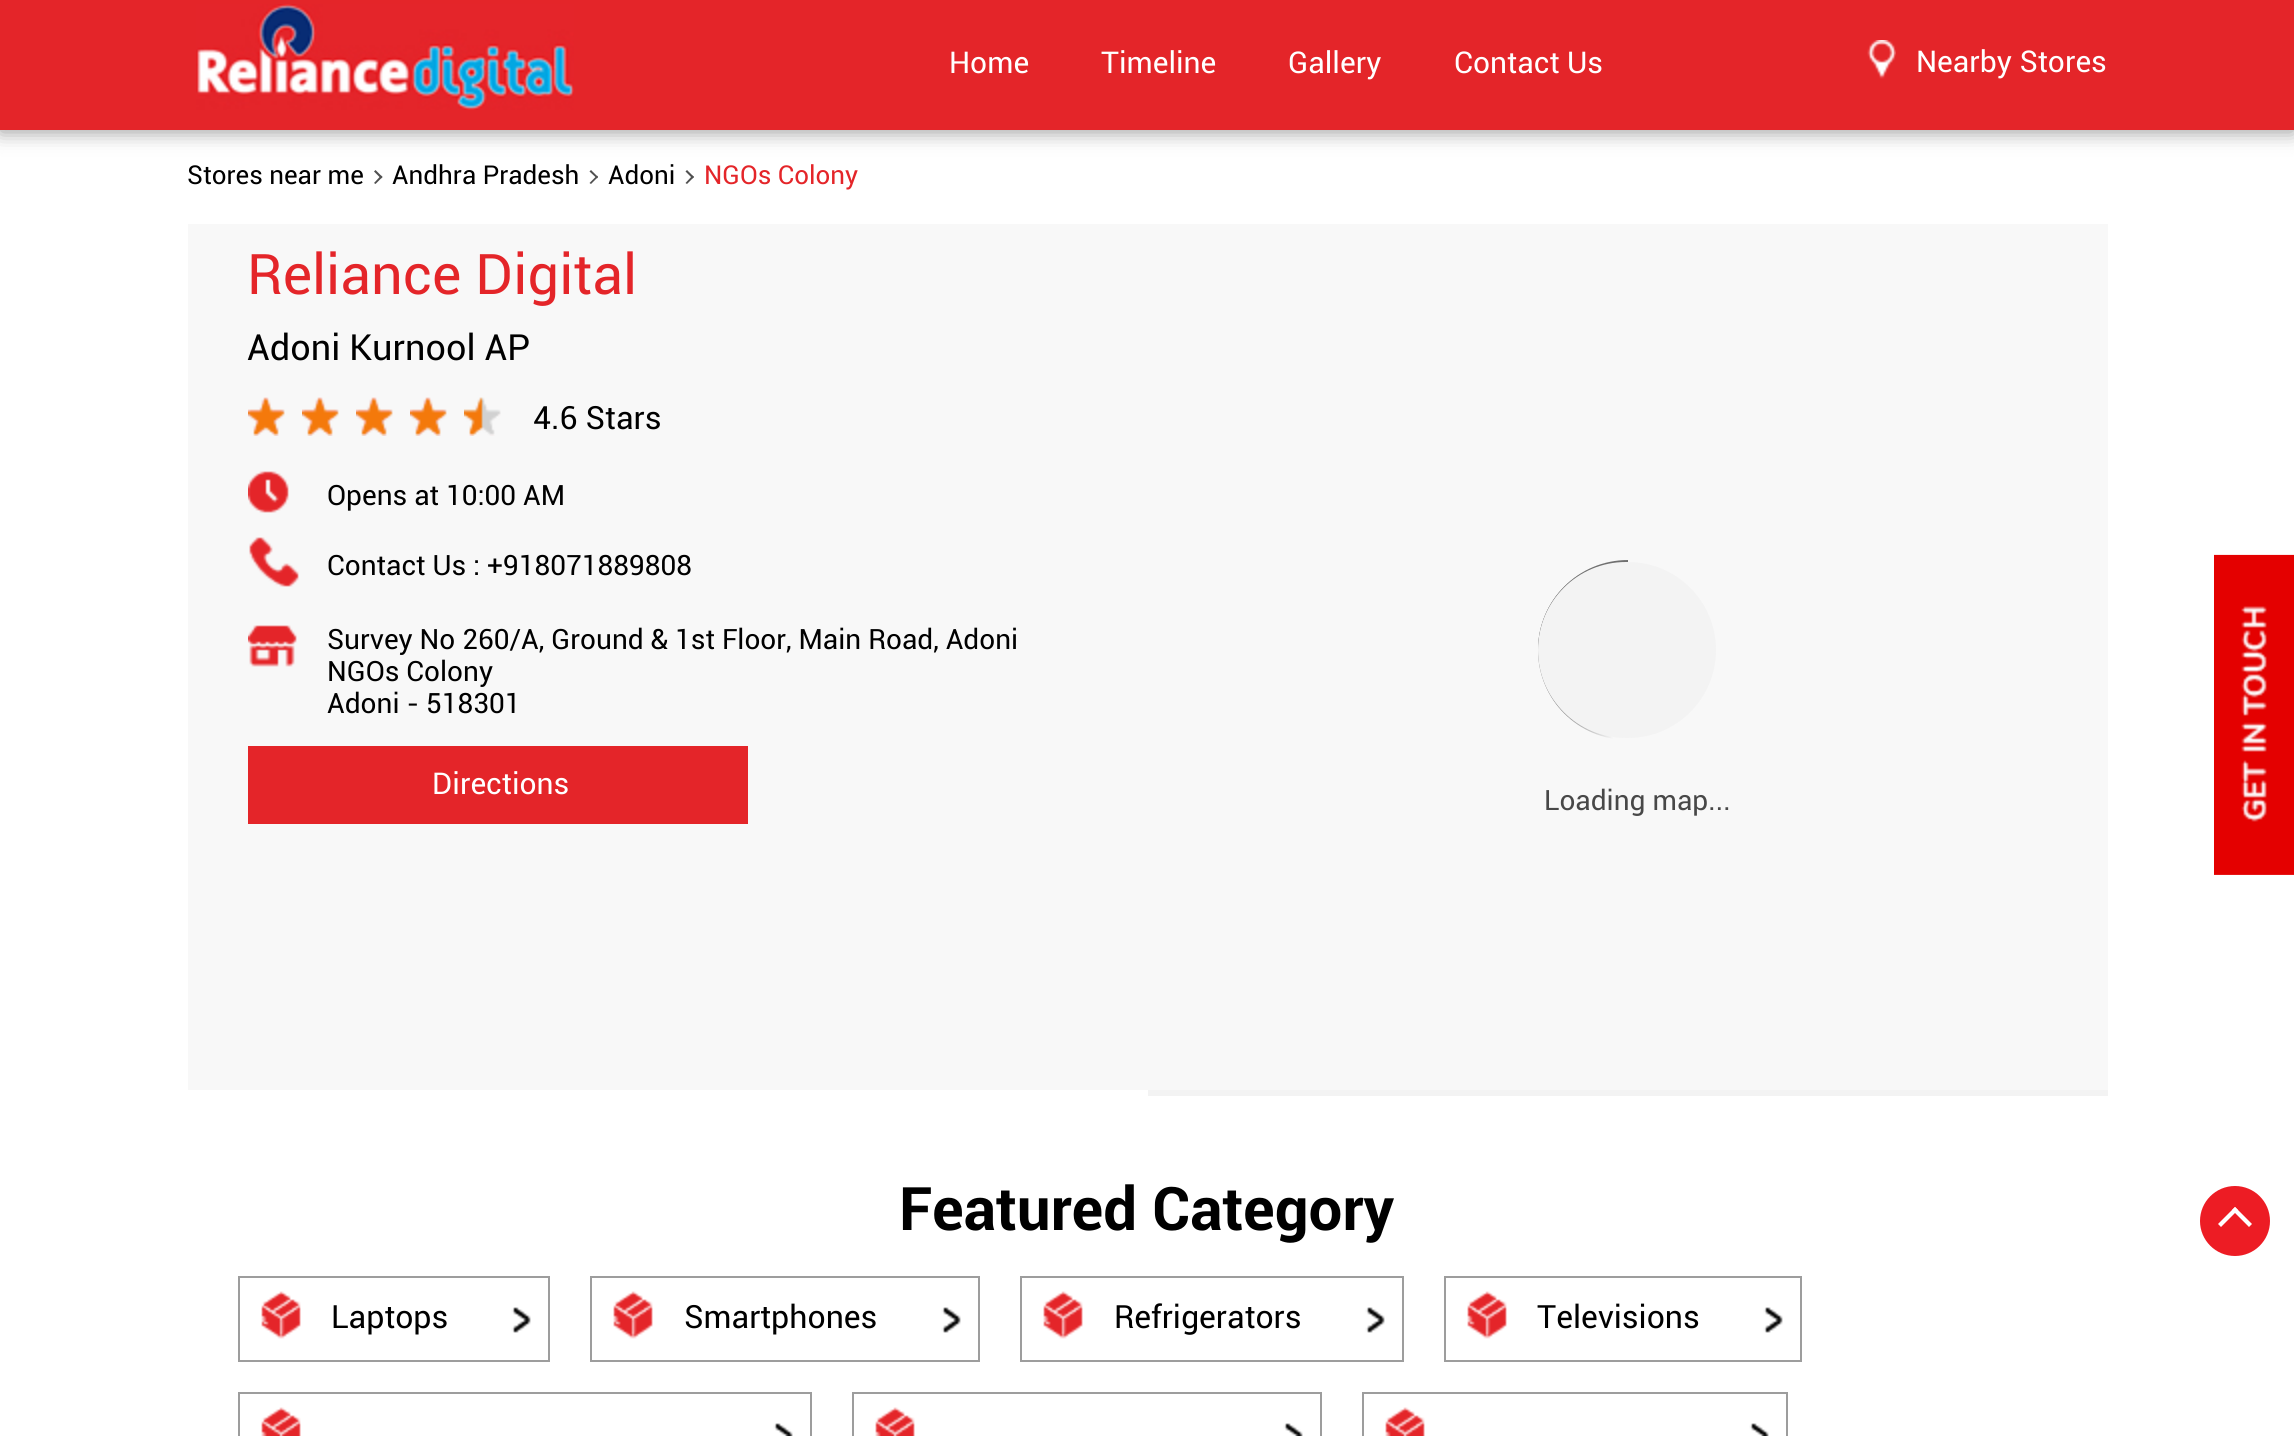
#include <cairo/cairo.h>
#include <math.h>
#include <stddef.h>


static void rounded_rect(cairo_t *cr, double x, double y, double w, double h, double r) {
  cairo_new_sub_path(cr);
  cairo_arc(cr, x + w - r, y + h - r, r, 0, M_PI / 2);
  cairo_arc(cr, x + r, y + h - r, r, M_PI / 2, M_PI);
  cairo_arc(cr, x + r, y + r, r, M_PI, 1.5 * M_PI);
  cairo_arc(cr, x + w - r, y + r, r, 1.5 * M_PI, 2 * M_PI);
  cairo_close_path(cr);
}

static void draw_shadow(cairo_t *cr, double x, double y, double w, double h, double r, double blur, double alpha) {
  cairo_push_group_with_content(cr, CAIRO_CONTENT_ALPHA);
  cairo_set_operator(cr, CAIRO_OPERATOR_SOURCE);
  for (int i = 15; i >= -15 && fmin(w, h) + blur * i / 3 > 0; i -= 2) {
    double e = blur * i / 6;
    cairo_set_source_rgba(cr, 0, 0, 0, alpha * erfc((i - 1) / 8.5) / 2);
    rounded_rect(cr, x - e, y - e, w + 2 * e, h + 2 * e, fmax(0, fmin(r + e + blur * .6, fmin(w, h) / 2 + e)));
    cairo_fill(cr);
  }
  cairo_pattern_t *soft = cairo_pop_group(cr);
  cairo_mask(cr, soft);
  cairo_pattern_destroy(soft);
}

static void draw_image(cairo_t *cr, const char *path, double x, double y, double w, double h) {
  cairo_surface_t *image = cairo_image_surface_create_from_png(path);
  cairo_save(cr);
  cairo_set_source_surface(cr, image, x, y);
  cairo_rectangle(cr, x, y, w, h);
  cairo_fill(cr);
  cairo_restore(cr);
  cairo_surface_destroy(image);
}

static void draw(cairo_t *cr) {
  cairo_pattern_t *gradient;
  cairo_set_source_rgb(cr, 1, 1, 1);
  cairo_paint(cr);
  cairo_set_source_rgb(cr, 0, 0, 0);
  draw_shadow(cr, 0, 2, 2294, 130, 0, 10, 0.4);
  cairo_set_source_rgb(cr, 228 / 255.0, 37 / 255.0, 41 / 255.0);
  cairo_rectangle(cr, 0, 0, 2294, 130);
  cairo_fill(cr);
  draw_image(cr, "images/1.png", 196, 4, 378, 106);
  draw_image(cr, "images/2.png", 1867, 40, 29, 39);
  cairo_set_source_rgb(cr, 80 / 255.0, 80 / 255.0, 80 / 255.0);
  cairo_new_path(cr);
  cairo_move_to(cr, 374, 171.5);
  cairo_line_to(cr, 375.5, 170);
  cairo_line_to(cr, 382.5, 177);
  cairo_line_to(cr, 381, 178.5);
  cairo_close_path(cr);
  cairo_fill(cr);
  cairo_new_path(cr);
  cairo_move_to(cr, 374, 183);
  cairo_line_to(cr, 381, 175.5);
  cairo_line_to(cr, 382.5, 177);
  cairo_line_to(cr, 375.5, 184);
  cairo_close_path(cr);
  cairo_fill(cr);
  cairo_new_path(cr);
  cairo_move_to(cr, 589.5, 171.5);
  cairo_line_to(cr, 591, 170);
  cairo_line_to(cr, 598, 177);
  cairo_line_to(cr, 597, 178.5);
  cairo_close_path(cr);
  cairo_fill(cr);
  cairo_new_path(cr);
  cairo_move_to(cr, 589.5, 183);
  cairo_line_to(cr, 597, 175.5);
  cairo_line_to(cr, 598, 177);
  cairo_line_to(cr, 591, 184);
  cairo_close_path(cr);
  cairo_fill(cr);
  cairo_new_path(cr);
  cairo_move_to(cr, 685.5, 171.5);
  cairo_line_to(cr, 687, 170);
  cairo_line_to(cr, 694, 177);
  cairo_line_to(cr, 692.5, 178.5);
  cairo_close_path(cr);
  cairo_fill(cr);
  cairo_new_path(cr);
  cairo_move_to(cr, 685.5, 183);
  cairo_line_to(cr, 692.5, 175.5);
  cairo_line_to(cr, 694, 177);
  cairo_line_to(cr, 687, 184);
  cairo_close_path(cr);
  cairo_fill(cr);
  cairo_set_source_rgb(cr, 248 / 255.0, 248 / 255.0, 248 / 255.0);
  cairo_rectangle(cr, 188, 224, 1920, 866);
  cairo_fill(cr);
  draw_image(cr, "images/3.png", 248, 397, 37, 39);
  draw_image(cr, "images/3.png", 302, 397, 37, 39);
  draw_image(cr, "images/3.png", 356, 397, 37, 39);
  draw_image(cr, "images/3.png", 410, 397, 37, 39);
  draw_image(cr, "images/4.png", 464, 397, 37, 39);
  draw_image(cr, "images/5.png", 248, 471, 41, 42);
  draw_image(cr, "images/6.png", 249, 537, 50, 50);
  draw_image(cr, "images/7.png", 248, 625, 49, 42);
  cairo_set_source_rgb(cr, 228 / 255.0, 37 / 255.0, 41 / 255.0);
  cairo_rectangle(cr, 248, 746, 500, 78);
  cairo_fill(cr);
  cairo_set_source_rgb(cr, 243 / 255.0, 243 / 255.0, 243 / 255.0);
  cairo_rectangle(cr, 1148, 1090, 960, 6);
  cairo_fill(cr);
  gradient = cairo_pattern_create_linear(1538, 650, 1718, 650);
  cairo_pattern_add_color_stop_rgba(gradient, 0.1, 125 / 255.0, 125 / 255.0, 125 / 255.0, 1);
  cairo_pattern_add_color_stop_rgba(gradient, 0.42, 248 / 255.0, 248 / 255.0, 248 / 255.0, 1);
  cairo_set_source(cr, gradient);
  cairo_pattern_destroy(gradient);
  cairo_arc(cr, 1628, 650, 90, 0, 2 * M_PI);
  cairo_fill(cr);
  cairo_set_source_rgb(cr, 111 / 255.0, 111 / 255.0, 111 / 255.0);
  cairo_new_path(cr);
  cairo_move_to(cr, 1628, 560);
  cairo_line_to(cr, 1628, 650);
  cairo_line_to(cr, 1538, 650);
  cairo_curve_to(cr, 1538, 600.5, 1578.5, 560, 1628, 560);
  cairo_close_path(cr);
  cairo_fill(cr);
  cairo_set_source_rgb(cr, 243 / 255.0, 243 / 255.0, 243 / 255.0);
  rounded_rect(cr, 1538, 562, 178, 176, 88);
  cairo_fill(cr);
  cairo_rectangle(cr, 239, 1277, 310, 84);
  cairo_set_source_rgb(cr, 157 / 255.0, 157 / 255.0, 157 / 255.0);
  cairo_stroke(cr);
  draw_image(cr, "images/8.png", 261, 1291, 40, 48);
  draw_image(cr, "images/9.png", 511, 1307, 20, 26);
  cairo_rectangle(cr, 591, 1277, 388, 84);
  cairo_stroke(cr);
  draw_image(cr, "images/8.png", 613, 1291, 40, 48);
  draw_image(cr, "images/9.png", 941, 1307, 20, 26);
  cairo_rectangle(cr, 1021, 1277, 382, 84);
  cairo_stroke(cr);
  draw_image(cr, "images/8.png", 1043, 1291, 40, 48);
  draw_image(cr, "images/9.png", 1365, 1307, 20, 26);
  cairo_rectangle(cr, 1445, 1277, 356, 84);
  cairo_stroke(cr);
  draw_image(cr, "images/8.png", 1467, 1291, 40, 48);
  draw_image(cr, "images/9.png", 1763, 1307, 20, 26);
  cairo_rectangle(cr, 239, 1393, 572, 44);
  cairo_stroke(cr);
  draw_image(cr, "images/10.png", 261, 1407, 40, 29);
  draw_image(cr, "images/11.png", 773, 1423, 20, 13);
  cairo_rectangle(cr, 853, 1393, 468, 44);
  cairo_stroke(cr);
  draw_image(cr, "images/10.png", 875, 1407, 40, 29);
  draw_image(cr, "images/11.png", 1283, 1423, 20, 13);
  cairo_rectangle(cr, 1363, 1393, 424, 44);
  cairo_stroke(cr);
  draw_image(cr, "images/10.png", 1385, 1407, 40, 29);
  draw_image(cr, "images/11.png", 1749, 1423, 20, 13);
  draw_image(cr, "images/12.png", 2214, 554, 80, 321);
  cairo_set_source_rgb(cr, 237 / 255.0, 28 / 255.0, 36 / 255.0);
  cairo_arc(cr, 2235, 1221, 35, 0, 2 * M_PI);
  cairo_fill(cr);
  cairo_set_source_rgb(cr, 1, 1, 1);
  cairo_new_path(cr);
  cairo_move_to(cr, 2221, 1227);
  cairo_line_to(cr, 2218, 1224);
  cairo_line_to(cr, 2235, 1207);
  cairo_line_to(cr, 2238, 1210);
  cairo_close_path(cr);
  cairo_fill(cr);
  cairo_new_path(cr);
  cairo_move_to(cr, 2249, 1227);
  cairo_line_to(cr, 2232, 1210);
  cairo_line_to(cr, 2235, 1207);
  cairo_line_to(cr, 2252, 1224);
  cairo_close_path(cr);
  cairo_fill(cr);
  cairo_select_font_face(cr, "Roboto", CAIRO_FONT_SLANT_NORMAL, CAIRO_FONT_WEIGHT_NORMAL);
  cairo_set_font_size(cr, 30);
  cairo_move_to(cr, 949, 73);
  cairo_show_text(cr, "Home");
  cairo_move_to(cr, 1101, 73);
  cairo_show_text(cr, "Timeline");
  cairo_move_to(cr, 1288, 73);
  cairo_show_text(cr, "Gallery");
  cairo_move_to(cr, 1454, 73);
  cairo_show_text(cr, "Contact Us");
  cairo_move_to(cr, 1916, 72);
  cairo_show_text(cr, "Nearby Stores");
  cairo_set_font_size(cr, 26);
  cairo_set_source_rgb(cr, 0, 0, 0);
  cairo_move_to(cr, 187, 184);
  cairo_show_text(cr, "Stores near me");
  cairo_move_to(cr, 392, 184);
  cairo_show_text(cr, "Andhra Pradesh");
  cairo_move_to(cr, 608, 184);
  cairo_show_text(cr, "Adoni");
  cairo_set_source_rgb(cr, 228 / 255.0, 37 / 255.0, 41 / 255.0);
  cairo_move_to(cr, 704, 184);
  cairo_show_text(cr, "NGOs Colony");
  cairo_set_font_size(cr, 56);
  cairo_move_to(cr, 247, 294);
  cairo_show_text(cr, "Reliance Digital");
  cairo_set_font_size(cr, 36);
  cairo_set_source_rgb(cr, 0, 0, 0);
  cairo_move_to(cr, 247, 360);
  cairo_show_text(cr, "Adoni Kurnool AP");
  cairo_set_font_size(cr, 32);
  cairo_move_to(cr, 533, 429);
  cairo_show_text(cr, "4.6 Stars");
  cairo_set_font_size(cr, 28);
  cairo_move_to(cr, 327, 505);
  cairo_show_text(cr, "Opens at 10:00 AM");
  cairo_move_to(cr, 327, 575);
  cairo_show_text(cr, "Contact Us : +918071889808");
  cairo_move_to(cr, 327, 649);
  cairo_show_text(cr, "Survey No 260/A, Ground & 1st Floor, Main Road, Adoni");
  cairo_move_to(cr, 327, 681);
  cairo_show_text(cr, "NGOs Colony");
  cairo_move_to(cr, 327, 713);
  cairo_show_text(cr, "Adoni - 518301");
  cairo_set_font_size(cr, 30);
  cairo_set_source_rgb(cr, 1, 1, 1);
  cairo_move_to(cr, 432, 794);
  cairo_show_text(cr, "Directions");
  cairo_set_font_size(cr, 28);
  cairo_set_source_rgb(cr, 72 / 255.0, 72 / 255.0, 72 / 255.0);
  cairo_move_to(cr, 1544, 810);
  cairo_show_text(cr, "Loading map...");
  cairo_select_font_face(cr, "Roboto", CAIRO_FONT_SLANT_NORMAL, CAIRO_FONT_WEIGHT_BOLD);
  cairo_set_font_size(cr, 60);
  cairo_set_source_rgb(cr, 0, 0, 0);
  cairo_move_to(cr, 899, 1230);
  cairo_show_text(cr, "Featured Category");
  cairo_select_font_face(cr, "Roboto", CAIRO_FONT_SLANT_NORMAL, CAIRO_FONT_WEIGHT_NORMAL);
  cairo_set_font_size(cr, 32);
  cairo_move_to(cr, 331, 1328);
  cairo_show_text(cr, "Laptops");
  cairo_move_to(cr, 684, 1328);
  cairo_show_text(cr, "Smartphones");
  cairo_move_to(cr, 1114, 1328);
  cairo_show_text(cr, "Refrigerators");
  cairo_move_to(cr, 1537, 1328);
  cairo_show_text(cr, "Televisions");
}

int main(void) {
  cairo_surface_t *surface = cairo_image_surface_create(CAIRO_FORMAT_RGB24, 2294, 1436);
  cairo_t *cr = cairo_create(surface);
  cairo_font_options_t *options = cairo_font_options_create();
  cairo_font_options_set_hint_metrics(options, CAIRO_HINT_METRICS_OFF);
  cairo_font_options_set_hint_style(options, CAIRO_HINT_STYLE_NONE);
  cairo_set_font_options(cr, options);
  cairo_set_miter_limit(cr, 4);
  draw(cr);
  cairo_surface_write_to_png(surface, "out.png");
  cairo_font_options_destroy(options);
  cairo_destroy(cr);
  cairo_surface_destroy(surface);
  return 0;
}
